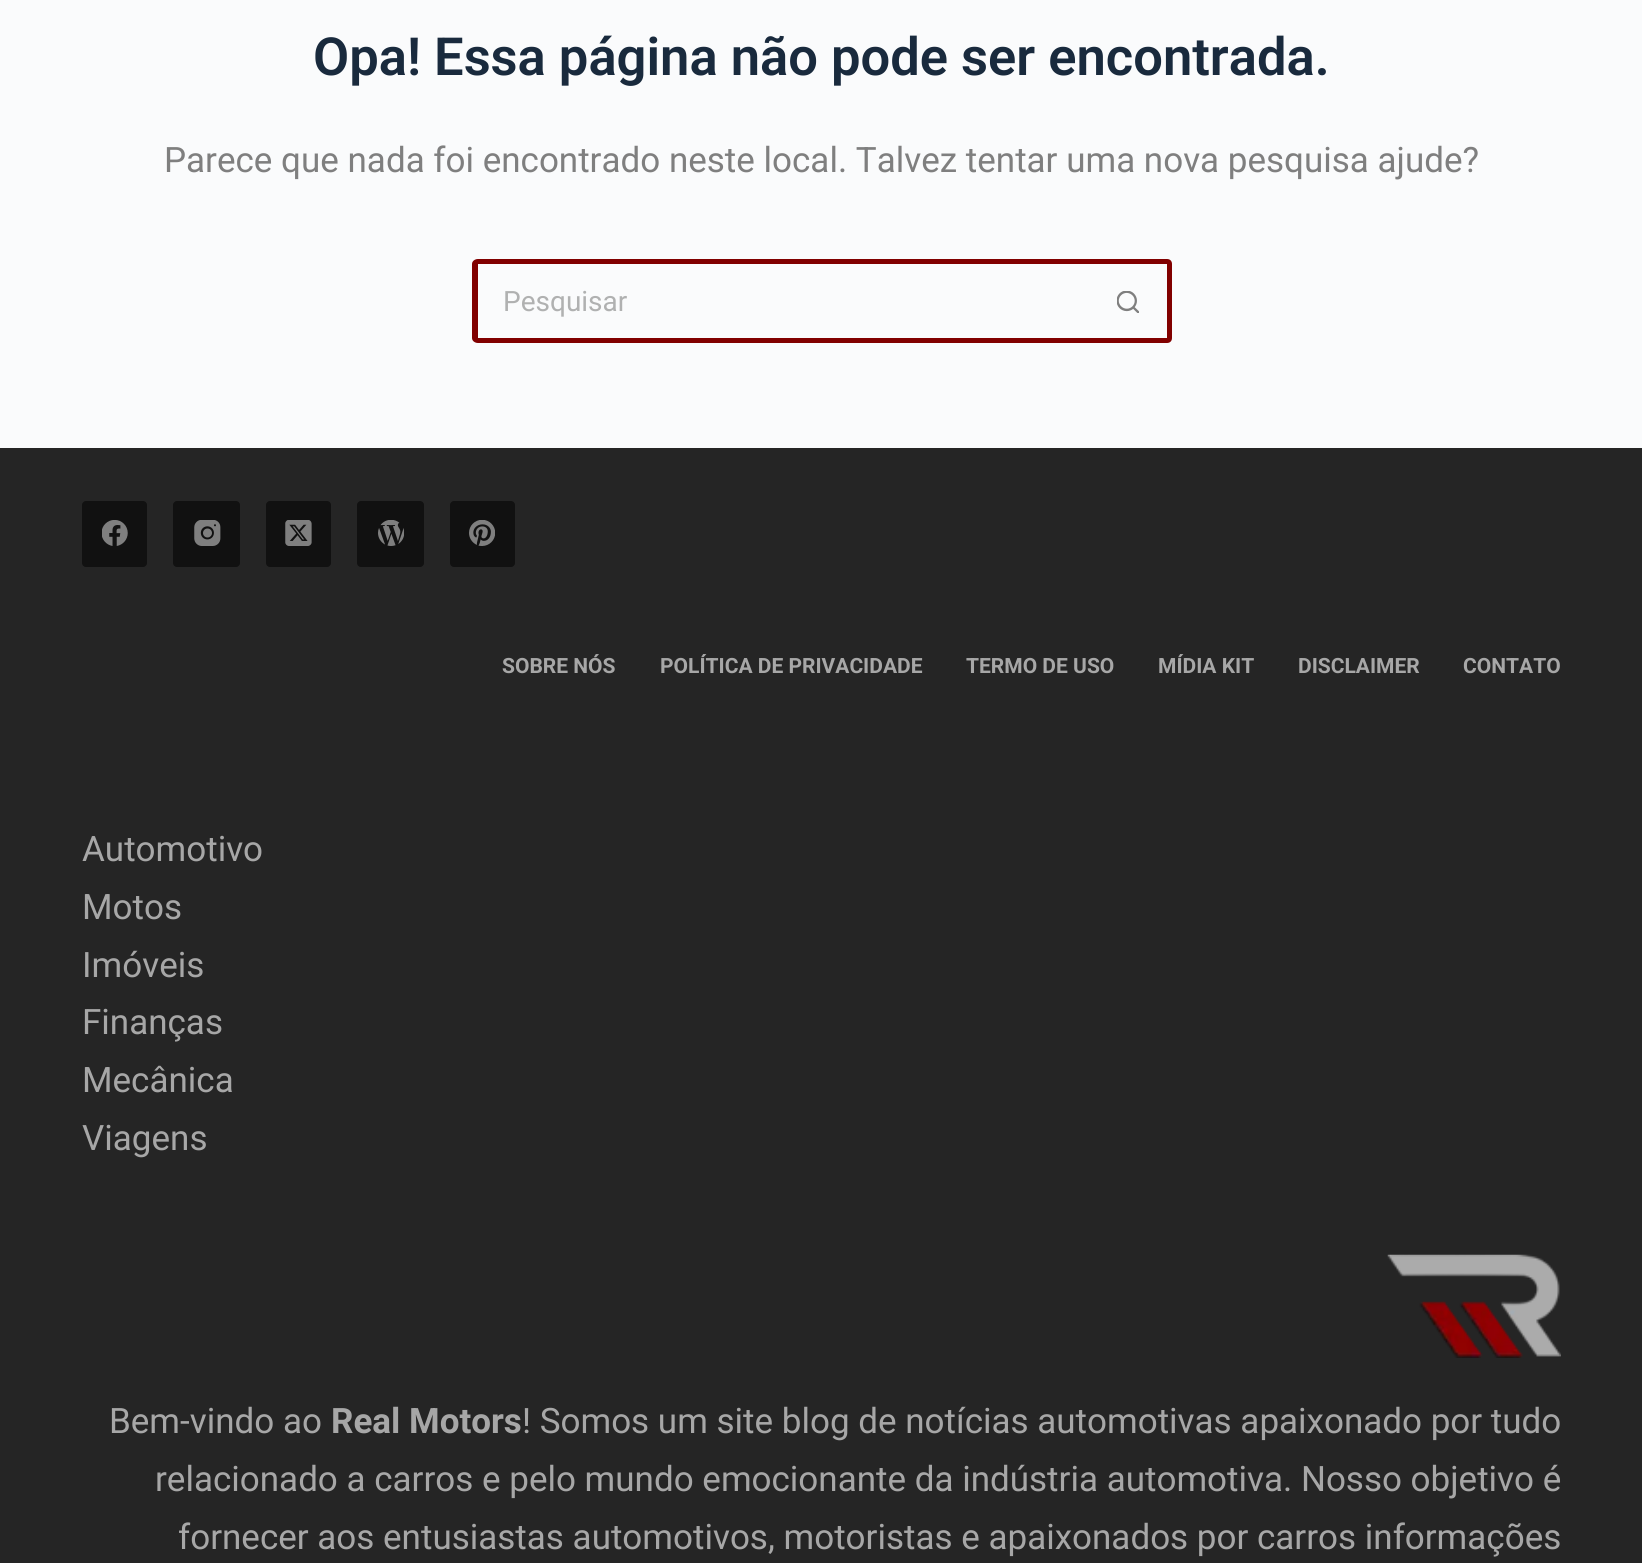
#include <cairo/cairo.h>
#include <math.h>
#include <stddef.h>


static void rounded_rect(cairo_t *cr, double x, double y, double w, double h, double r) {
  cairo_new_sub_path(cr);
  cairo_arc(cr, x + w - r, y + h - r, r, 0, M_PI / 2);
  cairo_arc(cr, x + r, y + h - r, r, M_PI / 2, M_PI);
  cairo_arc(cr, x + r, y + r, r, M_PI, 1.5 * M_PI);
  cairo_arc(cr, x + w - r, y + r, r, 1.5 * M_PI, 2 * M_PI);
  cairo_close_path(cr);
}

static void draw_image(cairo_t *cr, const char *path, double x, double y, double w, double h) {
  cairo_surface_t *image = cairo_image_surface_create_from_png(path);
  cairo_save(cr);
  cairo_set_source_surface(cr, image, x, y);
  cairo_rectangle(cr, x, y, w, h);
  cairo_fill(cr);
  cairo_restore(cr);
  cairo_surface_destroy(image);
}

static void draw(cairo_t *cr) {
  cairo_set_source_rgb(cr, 250 / 255.0, 251 / 255.0, 252 / 255.0);
  cairo_paint(cr);
  cairo_set_source_rgb(cr, 129 / 255.0, 0, 0);
  cairo_set_fill_rule(cr, CAIRO_FILL_RULE_EVEN_ODD);
  cairo_new_path(cr);
  cairo_move_to(cr, 478, 259);
  cairo_line_to(cr, 1088, 259);
  cairo_line_to(cr, 1088, 343);
  cairo_line_to(cr, 478, 343);
  cairo_curve_to(cr, 475, 343, 472, 341, 472, 338);
  cairo_line_to(cr, 472, 264);
  cairo_curve_to(cr, 472, 261, 475, 259, 478, 259);
  cairo_close_path(cr);
  cairo_move_to(cr, 478, 264);
  cairo_line_to(cr, 1088, 264);
  cairo_line_to(cr, 1088, 338);
  cairo_line_to(cr, 478, 338);
  cairo_close_path(cr);
  cairo_fill(cr);
  cairo_new_path(cr);
  cairo_move_to(cr, 1088, 259);
  cairo_line_to(cr, 1167, 259);
  cairo_curve_to(cr, 1170, 259, 1172, 261, 1172, 264);
  cairo_line_to(cr, 1172, 338);
  cairo_curve_to(cr, 1172, 341, 1170, 343, 1167, 343);
  cairo_line_to(cr, 1088, 343);
  cairo_close_path(cr);
  cairo_move_to(cr, 1088, 264);
  cairo_line_to(cr, 1167, 264);
  cairo_line_to(cr, 1167, 338);
  cairo_line_to(cr, 1088, 338);
  cairo_close_path(cr);
  cairo_fill(cr);
  draw_image(cr, "images/1.png", 1117, 291, 22, 22);
  cairo_set_source_rgb(cr, 37 / 255.0, 37 / 255.0, 37 / 255.0);
  cairo_rectangle(cr, 0, 448, 1642, 1115);
  cairo_fill(cr);
  cairo_set_source_rgb(cr, 17 / 255.0, 17 / 255.0, 17 / 255.0);
  rounded_rect(cr, 82, 501, 65, 66, 4);
  cairo_fill(cr);
  draw_image(cr, "images/2.png", 102, 520, 26, 26);
  rounded_rect(cr, 173, 501, 67, 66, 4);
  cairo_fill(cr);
  draw_image(cr, "images/3.png", 194, 520, 27, 26);
  rounded_rect(cr, 266, 501, 65, 66, 4);
  cairo_fill(cr);
  draw_image(cr, "images/4.png", 285, 520, 27, 26);
  rounded_rect(cr, 357, 501, 67, 66, 4);
  cairo_fill(cr);
  draw_image(cr, "images/5.png", 378, 520, 26, 26);
  rounded_rect(cr, 450, 501, 65, 66, 4);
  cairo_fill(cr);
  draw_image(cr, "images/6.png", 469, 520, 26, 26);
  draw_image(cr, "images/7.png", 1387, 1254, 174, 104);
  cairo_select_font_face(cr, "Roboto SemiBold", CAIRO_FONT_SLANT_NORMAL, CAIRO_FONT_WEIGHT_NORMAL);
  cairo_set_font_size(cr, 52.5);
  cairo_set_source_rgb(cr, 25 / 255.0, 42 / 255.0, 61 / 255.0);
  cairo_move_to(cr, 313, 75);
  cairo_show_text(cr, "Opa! Essa página não pode ser encontrada.");
  cairo_select_font_face(cr, "Roboto", CAIRO_FONT_SLANT_NORMAL, CAIRO_FONT_WEIGHT_NORMAL);
  cairo_set_font_size(cr, 35);
  cairo_set_source_rgb(cr, 127 / 255.0, 127 / 255.0, 127 / 255.0);
  cairo_move_to(cr, 164, 172);
  cairo_show_text(cr, "Parece que nada foi encontrado neste local. Talvez tentar uma nova pesquisa ajude?");
  cairo_set_font_size(cr, 28);
  cairo_set_source_rgb(cr, 176 / 255.0, 177 / 255.0, 177 / 255.0);
  cairo_move_to(cr, 503, 311);
  cairo_show_text(cr, "Pesquisar");
  cairo_select_font_face(cr, "Roboto", CAIRO_FONT_SLANT_NORMAL, CAIRO_FONT_WEIGHT_BOLD);
  cairo_set_font_size(cr, 21);
  cairo_set_source_rgb(cr, 167 / 255.0, 167 / 255.0, 167 / 255.0);
  cairo_move_to(cr, 502, 673);
  cairo_show_text(cr, "SOBRE NÓS");
  cairo_move_to(cr, 660, 673);
  cairo_show_text(cr, "POLÍTICA DE PRIVACIDADE");
  cairo_move_to(cr, 966, 673);
  cairo_show_text(cr, "TERMO DE USO");
  cairo_move_to(cr, 1158, 673);
  cairo_show_text(cr, "MÍDIA KIT");
  cairo_move_to(cr, 1298, 673);
  cairo_show_text(cr, "DISCLAIMER");
  cairo_move_to(cr, 1463, 673);
  cairo_show_text(cr, "CONTATO");
  cairo_select_font_face(cr, "Roboto", CAIRO_FONT_SLANT_NORMAL, CAIRO_FONT_WEIGHT_NORMAL);
  cairo_set_font_size(cr, 35);
  cairo_move_to(cr, 82, 861);
  cairo_show_text(cr, "Automotivo");
  cairo_move_to(cr, 82, 919);
  cairo_show_text(cr, "Motos");
  cairo_move_to(cr, 82, 977);
  cairo_show_text(cr, "Imóveis");
  cairo_move_to(cr, 82, 1034);
  cairo_show_text(cr, "Finanças");
  cairo_move_to(cr, 82, 1092);
  cairo_show_text(cr, "Mecânica");
  cairo_move_to(cr, 82, 1150);
  cairo_show_text(cr, "Viagens");
  cairo_move_to(cr, 109, 1433);
  cairo_show_text(cr, "Bem-vindo ao");
  cairo_select_font_face(cr, "Roboto", CAIRO_FONT_SLANT_NORMAL, CAIRO_FONT_WEIGHT_BOLD);
  cairo_move_to(cr, 331, 1433);
  cairo_show_text(cr, "Real Motors");
  cairo_select_font_face(cr, "Roboto", CAIRO_FONT_SLANT_NORMAL, CAIRO_FONT_WEIGHT_NORMAL);
  cairo_move_to(cr, 522, 1433);
  cairo_show_text(cr, "! Somos um site blog de notícias automotivas apaixonado por tudo");
  cairo_move_to(cr, 155, 1491);
  cairo_show_text(cr, "relacionado a carros e pelo mundo emocionante da indústria automotiva. Nosso objetivo é");
  cairo_move_to(cr, 178, 1549);
  cairo_show_text(cr, "fornecer aos entusiastas automotivos, motoristas e apaixonados por carros informações");
}

int main(void) {
  cairo_surface_t *surface = cairo_image_surface_create(CAIRO_FORMAT_RGB24, 1642, 1563);
  cairo_t *cr = cairo_create(surface);
  cairo_font_options_t *options = cairo_font_options_create();
  cairo_font_options_set_hint_metrics(options, CAIRO_HINT_METRICS_OFF);
  cairo_font_options_set_hint_style(options, CAIRO_HINT_STYLE_NONE);
  cairo_set_font_options(cr, options);
  cairo_set_miter_limit(cr, 4);
  draw(cr);
  cairo_surface_write_to_png(surface, "out.png");
  cairo_font_options_destroy(options);
  cairo_destroy(cr);
  cairo_surface_destroy(surface);
  return 0;
}
